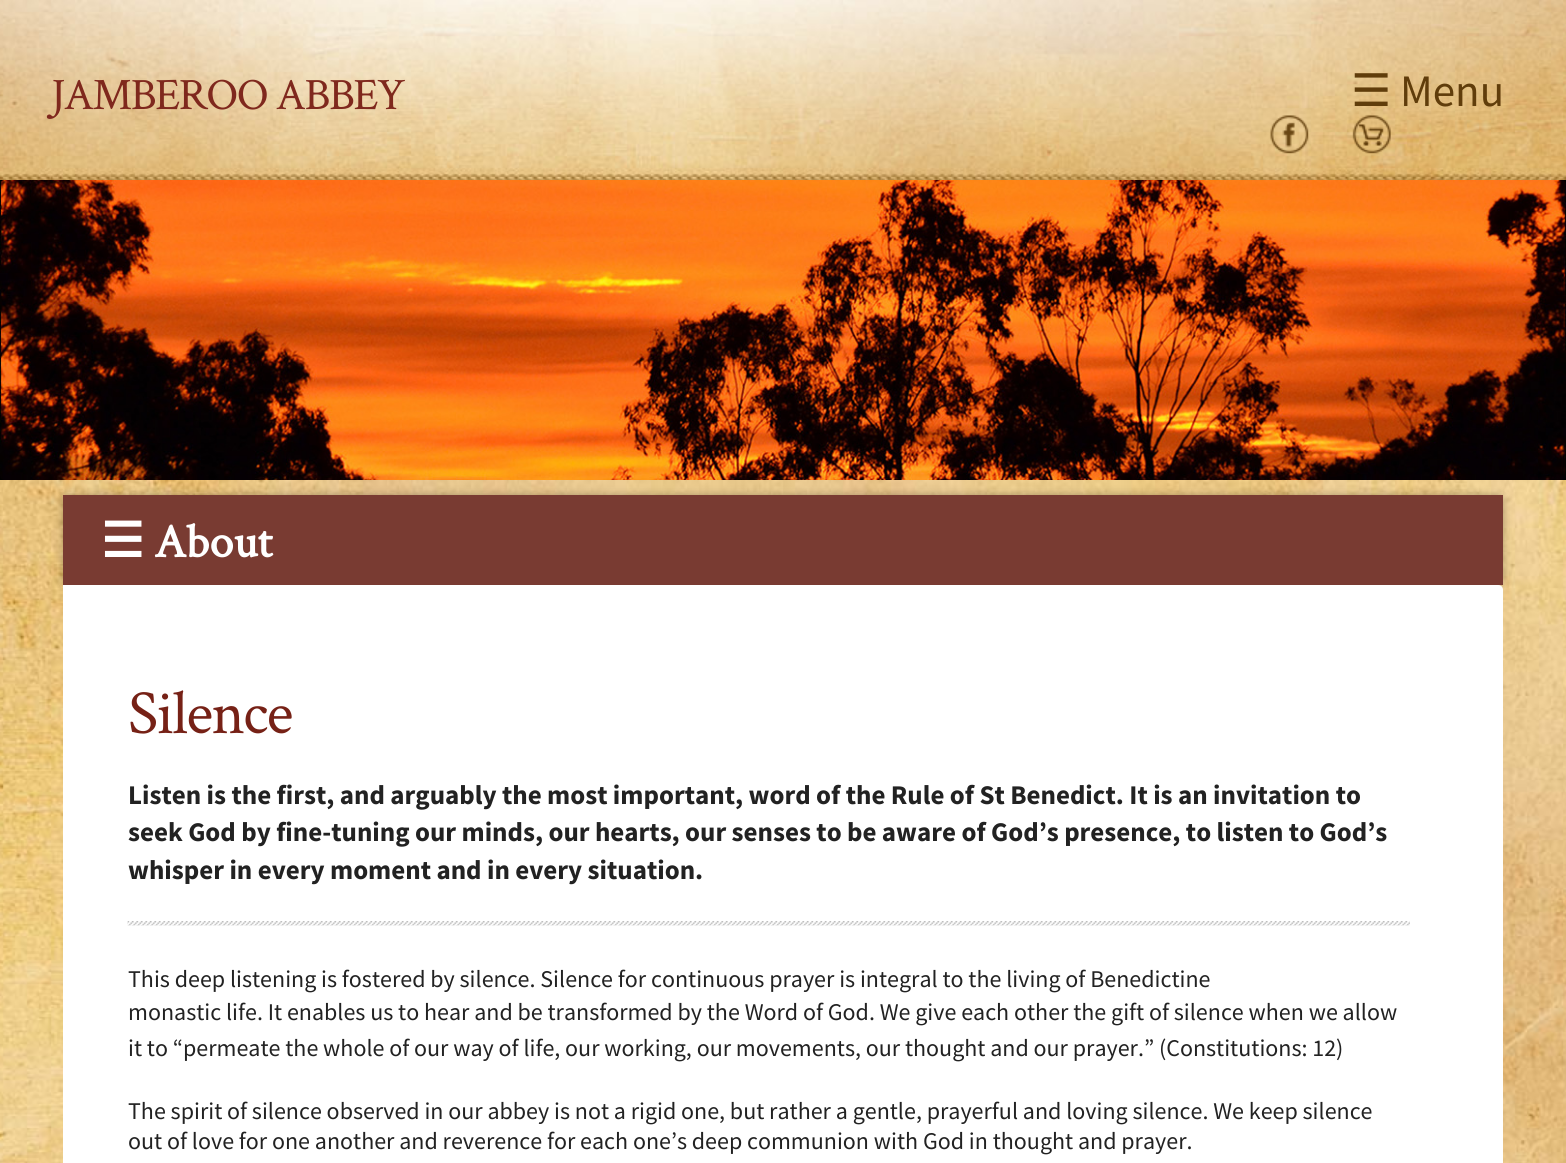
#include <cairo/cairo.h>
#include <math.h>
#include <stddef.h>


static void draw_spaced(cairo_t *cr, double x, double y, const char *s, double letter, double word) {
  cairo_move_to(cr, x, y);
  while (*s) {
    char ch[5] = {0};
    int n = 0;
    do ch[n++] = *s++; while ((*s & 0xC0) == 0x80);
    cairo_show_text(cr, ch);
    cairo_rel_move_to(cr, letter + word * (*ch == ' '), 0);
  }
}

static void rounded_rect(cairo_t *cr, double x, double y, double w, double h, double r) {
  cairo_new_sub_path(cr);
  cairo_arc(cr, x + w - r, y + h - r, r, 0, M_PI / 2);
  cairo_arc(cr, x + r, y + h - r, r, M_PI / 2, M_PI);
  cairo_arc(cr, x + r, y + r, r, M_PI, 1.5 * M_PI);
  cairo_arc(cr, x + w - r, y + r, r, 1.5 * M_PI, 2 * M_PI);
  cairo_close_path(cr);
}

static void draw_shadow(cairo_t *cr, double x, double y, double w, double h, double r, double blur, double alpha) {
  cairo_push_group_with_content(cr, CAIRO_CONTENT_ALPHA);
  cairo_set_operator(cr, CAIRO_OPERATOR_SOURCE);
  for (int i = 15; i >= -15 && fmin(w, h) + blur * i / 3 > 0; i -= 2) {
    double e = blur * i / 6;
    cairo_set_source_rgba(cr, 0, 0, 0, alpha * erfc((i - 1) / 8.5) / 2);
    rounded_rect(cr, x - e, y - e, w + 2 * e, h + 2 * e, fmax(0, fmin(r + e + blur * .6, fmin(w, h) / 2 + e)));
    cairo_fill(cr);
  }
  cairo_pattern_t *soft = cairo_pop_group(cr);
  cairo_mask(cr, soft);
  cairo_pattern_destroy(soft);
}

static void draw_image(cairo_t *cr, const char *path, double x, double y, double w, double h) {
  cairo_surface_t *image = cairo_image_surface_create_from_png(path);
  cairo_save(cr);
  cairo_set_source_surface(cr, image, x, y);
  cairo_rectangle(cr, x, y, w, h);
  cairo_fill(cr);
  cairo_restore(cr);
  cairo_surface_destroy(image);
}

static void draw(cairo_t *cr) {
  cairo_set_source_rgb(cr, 0, 0, 0);
  cairo_paint(cr);
  draw_image(cr, "images/1.png", 0, 0, 1566, 180);
  draw_image(cr, "images/2.png", 1270, 115, 39, 39);
  draw_image(cr, "images/3.png", 1352, 115, 39, 39);
  draw_image(cr, "images/4.png", 0, 180, 1566, 300);
  draw_image(cr, "images/5.png", 0, 480, 1566, 683);
  draw_shadow(cr, 63, 495, 1440, 90, 5, 4.5, 0.3);
  cairo_set_source_rgb(cr, 121 / 255.0, 59 / 255.0, 50 / 255.0);
  cairo_rectangle(cr, 63, 495, 1440, 90);
  cairo_fill(cr);
  cairo_set_source_rgb(cr, 1, 1, 1);
  cairo_new_path(cr);
  cairo_move_to(cr, 63, 585);
  cairo_line_to(cr, 1498, 585);
  cairo_curve_to(cr, 1501, 585, 1503, 587, 1503, 590);
  cairo_line_to(cr, 1503, 1163);
  cairo_curve_to(cr, 1503, 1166, 1501, 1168, 1498, 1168);
  cairo_line_to(cr, 63, 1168);
  cairo_close_path(cr);
  cairo_fill(cr);
  draw_image(cr, "images/6.png", 127, 921, 1283, 5);
  cairo_select_font_face(cr, "Crimson Text", CAIRO_FONT_SLANT_NORMAL, CAIRO_FONT_WEIGHT_NORMAL);
  cairo_set_font_size(cr, 45);
  cairo_set_source_rgb(cr, 127 / 255.0, 40 / 255.0, 29 / 255.0);
  draw_spaced(cr, 51, 109, "JAMBEROO ABBEY", -1.5, 0);
  cairo_select_font_face(cr, "DejaVu Sans", CAIRO_FONT_SLANT_NORMAL, CAIRO_FONT_WEIGHT_NORMAL);
  cairo_set_source_rgb(cr, 96 / 255.0, 61 / 255.0, 11 / 255.0);
  cairo_move_to(cr, 1351, 106);
  cairo_show_text(cr, "☰");
  cairo_select_font_face(cr, "Source Sans Pro", CAIRO_FONT_SLANT_NORMAL, CAIRO_FONT_WEIGHT_NORMAL);
  cairo_move_to(cr, 1400, 106);
  cairo_show_text(cr, "Menu");
  cairo_select_font_face(cr, "DejaVu Sans", CAIRO_FONT_SLANT_NORMAL, CAIRO_FONT_WEIGHT_BOLD);
  cairo_set_font_size(cr, 48);
  cairo_set_source_rgb(cr, 1, 1, 1);
  cairo_move_to(cr, 101, 557);
  cairo_show_text(cr, "☰");
  cairo_select_font_face(cr, "Crimson Text", CAIRO_FONT_SLANT_NORMAL, CAIRO_FONT_WEIGHT_BOLD);
  cairo_move_to(cr, 154, 557);
  cairo_show_text(cr, "About");
  cairo_select_font_face(cr, "Crimson Text", CAIRO_FONT_SLANT_NORMAL, CAIRO_FONT_WEIGHT_NORMAL);
  cairo_set_font_size(cr, 63);
  cairo_set_source_rgb(cr, 118 / 255.0, 33 / 255.0, 22 / 255.0);
  draw_spaced(cr, 128, 733, "Silence", -1.5, 0);
  cairo_select_font_face(cr, "Source Sans Pro", CAIRO_FONT_SLANT_NORMAL, CAIRO_FONT_WEIGHT_BOLD);
  cairo_set_font_size(cr, 27);
  cairo_set_source_rgb(cr, 34 / 255.0, 34 / 255.0, 34 / 255.0);
  cairo_move_to(cr, 128, 804);
  cairo_show_text(cr, "Listen is the first, and arguably the most important, word of the Rule of St Benedict. It is an invitation to");
  cairo_move_to(cr, 128, 841);
  cairo_show_text(cr, "seek God by fine-tuning our minds, our hearts, our senses to be aware of God’s presence, to listen to God’s");
  cairo_move_to(cr, 128, 879);
  cairo_show_text(cr, "whisper in every moment and in every situation.");
  cairo_select_font_face(cr, "Source Sans Pro", CAIRO_FONT_SLANT_NORMAL, CAIRO_FONT_WEIGHT_NORMAL);
  cairo_set_font_size(cr, 24);
  cairo_move_to(cr, 128, 987);
  cairo_show_text(cr, "This deep listening is fostered by silence. Silence for continuous prayer is integral to the living of Benedictine");
  cairo_move_to(cr, 128, 1020);
  cairo_show_text(cr, "monastic life. It enables us to hear and be transformed by the Word of God. We give each other the gift of silence when we allow");
  cairo_move_to(cr, 128, 1056);
  cairo_show_text(cr, "it to “permeate the whole of our way of life, our working, our movements, our thought and our prayer.” (Constitutions: 12)");
  cairo_move_to(cr, 128, 1119);
  cairo_show_text(cr, "The spirit of silence observed in our abbey is not a rigid one, but rather a gentle, prayerful and loving silence. We keep silence");
  cairo_move_to(cr, 128, 1149);
  cairo_show_text(cr, "out of love for one another and reverence for each one’s deep communion with God in thought and prayer.");
}

int main(void) {
  cairo_surface_t *surface = cairo_image_surface_create(CAIRO_FORMAT_RGB24, 1566, 1163);
  cairo_t *cr = cairo_create(surface);
  cairo_font_options_t *options = cairo_font_options_create();
  cairo_font_options_set_hint_metrics(options, CAIRO_HINT_METRICS_OFF);
  cairo_font_options_set_hint_style(options, CAIRO_HINT_STYLE_NONE);
  cairo_set_font_options(cr, options);
  cairo_set_miter_limit(cr, 4);
  draw(cr);
  cairo_surface_write_to_png(surface, "out.png");
  cairo_font_options_destroy(options);
  cairo_destroy(cr);
  cairo_surface_destroy(surface);
  return 0;
}
